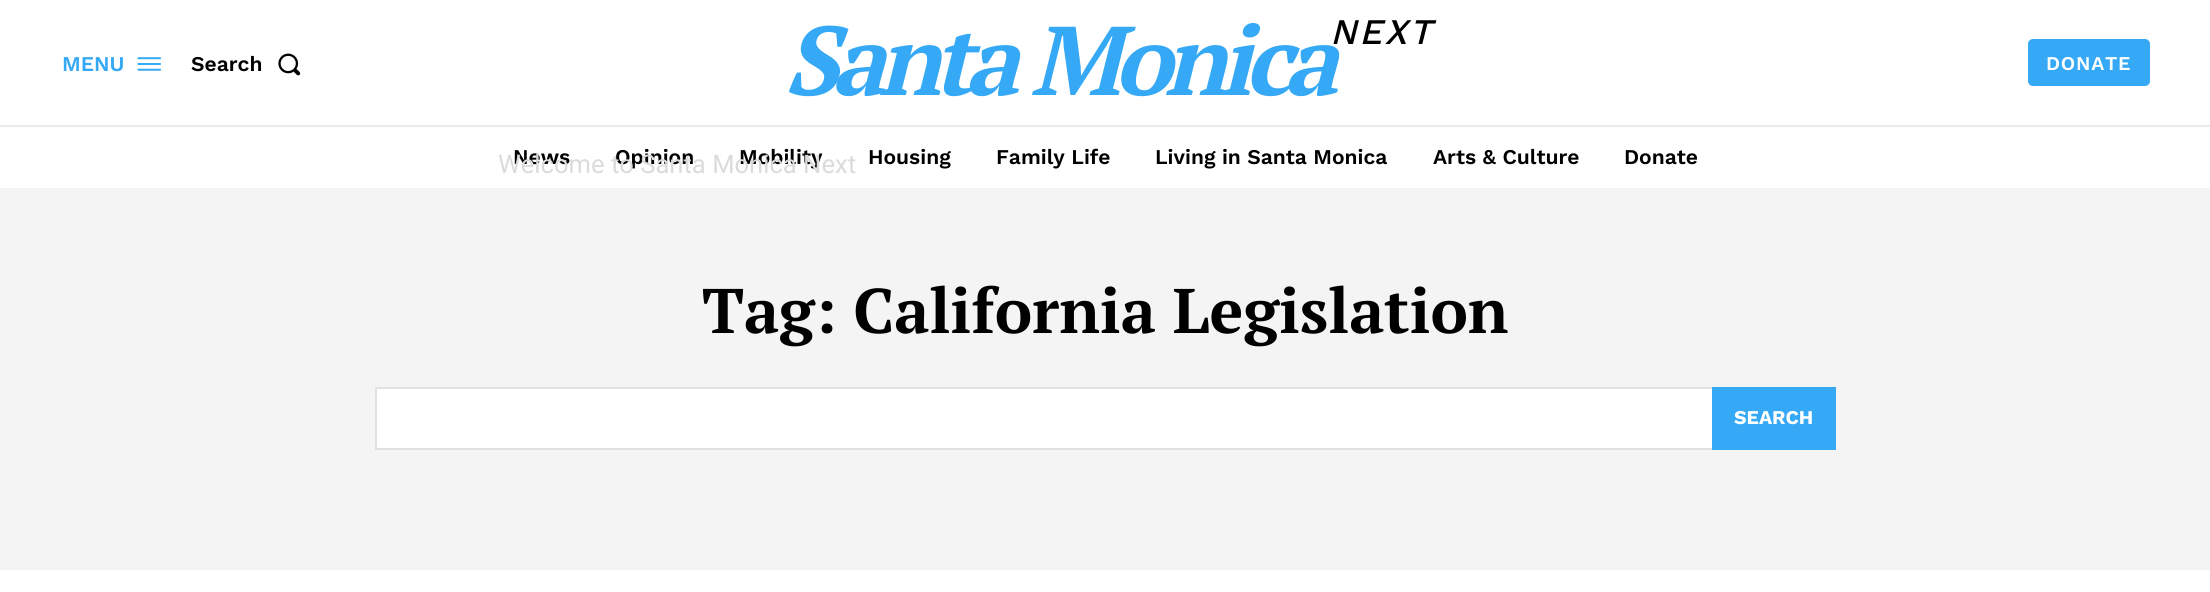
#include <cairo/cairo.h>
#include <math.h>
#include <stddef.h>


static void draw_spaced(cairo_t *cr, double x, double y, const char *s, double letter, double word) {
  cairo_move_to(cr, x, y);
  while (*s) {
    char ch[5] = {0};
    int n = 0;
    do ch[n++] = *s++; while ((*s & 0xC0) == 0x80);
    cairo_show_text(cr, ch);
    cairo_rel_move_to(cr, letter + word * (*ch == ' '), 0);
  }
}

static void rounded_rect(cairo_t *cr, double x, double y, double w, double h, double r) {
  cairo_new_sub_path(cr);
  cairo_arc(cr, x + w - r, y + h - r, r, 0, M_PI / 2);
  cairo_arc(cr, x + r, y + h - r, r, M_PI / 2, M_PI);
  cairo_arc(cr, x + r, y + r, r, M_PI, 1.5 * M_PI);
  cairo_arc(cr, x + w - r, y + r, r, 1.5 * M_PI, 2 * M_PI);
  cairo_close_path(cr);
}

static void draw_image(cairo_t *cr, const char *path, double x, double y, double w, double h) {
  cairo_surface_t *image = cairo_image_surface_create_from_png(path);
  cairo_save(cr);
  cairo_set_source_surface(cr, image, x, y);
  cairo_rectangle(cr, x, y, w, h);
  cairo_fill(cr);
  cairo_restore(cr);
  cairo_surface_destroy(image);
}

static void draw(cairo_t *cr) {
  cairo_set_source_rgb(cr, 1, 1, 1);
  cairo_paint(cr);
  draw_image(cr, "images/1.png", 137, 57, 24, 14);
  draw_image(cr, "images/2.png", 278, 53, 23, 23);
  cairo_set_source_rgb(cr, 53 / 255.0, 168 / 255.0, 246 / 255.0);
  rounded_rect(cr, 2028, 39, 122, 47, 5);
  cairo_fill(cr);
  cairo_set_source_rgb(cr, 234 / 255.0, 234 / 255.0, 234 / 255.0);
  cairo_rectangle(cr, 0, 125, 2210, 2);
  cairo_fill(cr);
  cairo_set_source_rgb(cr, 244 / 255.0, 244 / 255.0, 244 / 255.0);
  cairo_rectangle(cr, 0, 188, 2210, 382);
  cairo_fill(cr);
  cairo_set_source_rgb(cr, 1, 1, 1);
  cairo_rectangle(cr, 377, 389, 1335, 59);
  cairo_fill(cr);
  cairo_rectangle(cr, 376, 388, 1459, 61);
  cairo_set_source_rgb(cr, 225 / 255.0, 225 / 255.0, 225 / 255.0);
  cairo_stroke(cr);
  cairo_set_source_rgb(cr, 53 / 255.0, 168 / 255.0, 246 / 255.0);
  cairo_rectangle(cr, 1712, 387, 124, 63);
  cairo_fill(cr);
  cairo_select_font_face(cr, "Work Sans SemiBold", CAIRO_FONT_SLANT_NORMAL, CAIRO_FONT_WEIGHT_NORMAL);
  cairo_set_font_size(cr, 21);
  cairo_move_to(cr, 62, 71);
  cairo_show_text(cr, "MENU");
  cairo_set_source_rgb(cr, 0, 0, 0);
  cairo_move_to(cr, 191, 71);
  cairo_show_text(cr, "Search");
  cairo_select_font_face(cr, "PT Serif", CAIRO_FONT_SLANT_ITALIC, CAIRO_FONT_WEIGHT_BOLD);
  cairo_set_font_size(cr, 97.5);
  cairo_set_source_rgb(cr, 53 / 255.0, 168 / 255.0, 246 / 255.0);
  draw_spaced(cr, 784, 95, "Santa Monica", -7.5, 0);
  cairo_select_font_face(cr, "Work Sans Medium", CAIRO_FONT_SLANT_ITALIC, CAIRO_FONT_WEIGHT_NORMAL);
  cairo_set_font_size(cr, 36);
  cairo_set_source_rgb(cr, 0, 0, 0);
  draw_spaced(cr, 1330, 44, "NEXT", 2.5, 0);
  cairo_select_font_face(cr, "Work Sans SemiBold", CAIRO_FONT_SLANT_NORMAL, CAIRO_FONT_WEIGHT_NORMAL);
  cairo_set_font_size(cr, 19.5);
  cairo_set_source_rgb(cr, 1, 1, 1);
  draw_spaced(cr, 2046, 70, "DONATE", 0.75, 0);
  cairo_set_font_size(cr, 21);
  cairo_set_source_rgb(cr, 0, 0, 0);
  cairo_move_to(cr, 513, 164);
  cairo_show_text(cr, "News");
  cairo_move_to(cr, 615, 164);
  cairo_show_text(cr, "Opinion");
  cairo_move_to(cr, 739, 164);
  cairo_show_text(cr, "Mobility");
  cairo_move_to(cr, 868, 164);
  cairo_show_text(cr, "Housing");
  cairo_move_to(cr, 996, 164);
  cairo_show_text(cr, "Family Life");
  cairo_move_to(cr, 1155, 164);
  cairo_show_text(cr, "Living in Santa Monica");
  cairo_move_to(cr, 1433, 164);
  cairo_show_text(cr, "Arts & Culture");
  cairo_move_to(cr, 1624, 164);
  cairo_show_text(cr, "Donate");
  cairo_select_font_face(cr, "PT Serif", CAIRO_FONT_SLANT_NORMAL, CAIRO_FONT_WEIGHT_BOLD);
  cairo_set_font_size(cr, 63);
  cairo_move_to(cr, 702, 333);
  cairo_show_text(cr, "Tag: California Legislation");
  cairo_select_font_face(cr, "Work Sans", CAIRO_FONT_SLANT_NORMAL, CAIRO_FONT_WEIGHT_BOLD);
  cairo_set_font_size(cr, 19.5);
  cairo_set_source_rgb(cr, 1, 1, 1);
  cairo_move_to(cr, 1734, 424);
  cairo_show_text(cr, "SEARCH");
  cairo_select_font_face(cr, "Roboto", CAIRO_FONT_SLANT_NORMAL, CAIRO_FONT_WEIGHT_NORMAL);
  cairo_set_font_size(cr, 25.6);
  cairo_set_source_rgb(cr, 219 / 255.0, 219 / 255.0, 219 / 255.0);
  cairo_move_to(cr, 498, 173);
  cairo_show_text(cr, "Welcome to Santa Monica Next");
}

int main(void) {
  cairo_surface_t *surface = cairo_image_surface_create(CAIRO_FORMAT_RGB24, 2210, 592);
  cairo_t *cr = cairo_create(surface);
  cairo_font_options_t *options = cairo_font_options_create();
  cairo_font_options_set_hint_metrics(options, CAIRO_HINT_METRICS_OFF);
  cairo_font_options_set_hint_style(options, CAIRO_HINT_STYLE_NONE);
  cairo_set_font_options(cr, options);
  cairo_set_miter_limit(cr, 4);
  draw(cr);
  cairo_surface_write_to_png(surface, "out.png");
  cairo_font_options_destroy(options);
  cairo_destroy(cr);
  cairo_surface_destroy(surface);
  return 0;
}
